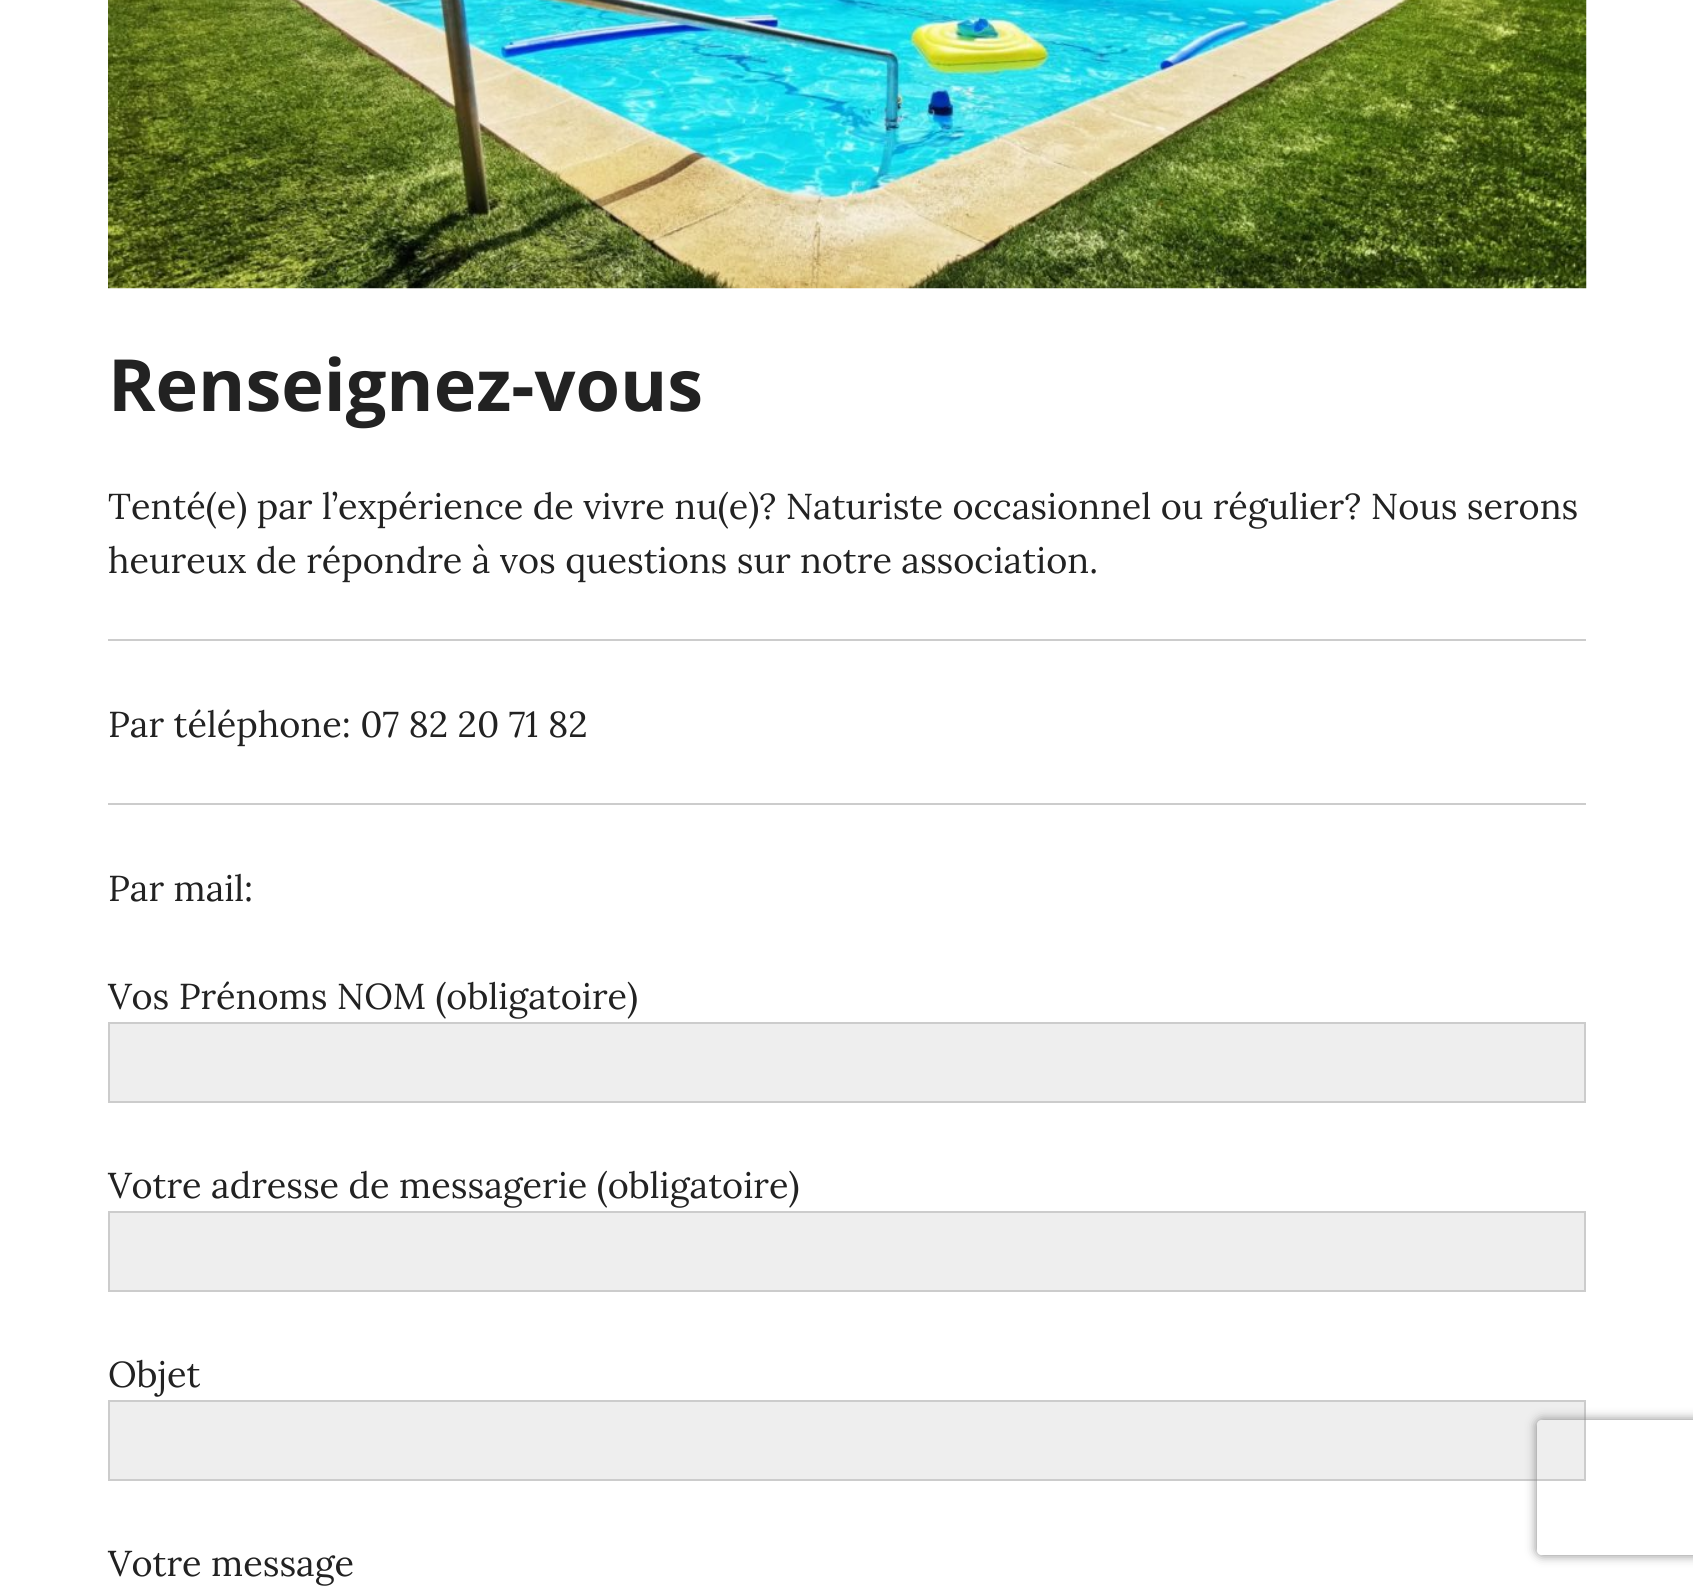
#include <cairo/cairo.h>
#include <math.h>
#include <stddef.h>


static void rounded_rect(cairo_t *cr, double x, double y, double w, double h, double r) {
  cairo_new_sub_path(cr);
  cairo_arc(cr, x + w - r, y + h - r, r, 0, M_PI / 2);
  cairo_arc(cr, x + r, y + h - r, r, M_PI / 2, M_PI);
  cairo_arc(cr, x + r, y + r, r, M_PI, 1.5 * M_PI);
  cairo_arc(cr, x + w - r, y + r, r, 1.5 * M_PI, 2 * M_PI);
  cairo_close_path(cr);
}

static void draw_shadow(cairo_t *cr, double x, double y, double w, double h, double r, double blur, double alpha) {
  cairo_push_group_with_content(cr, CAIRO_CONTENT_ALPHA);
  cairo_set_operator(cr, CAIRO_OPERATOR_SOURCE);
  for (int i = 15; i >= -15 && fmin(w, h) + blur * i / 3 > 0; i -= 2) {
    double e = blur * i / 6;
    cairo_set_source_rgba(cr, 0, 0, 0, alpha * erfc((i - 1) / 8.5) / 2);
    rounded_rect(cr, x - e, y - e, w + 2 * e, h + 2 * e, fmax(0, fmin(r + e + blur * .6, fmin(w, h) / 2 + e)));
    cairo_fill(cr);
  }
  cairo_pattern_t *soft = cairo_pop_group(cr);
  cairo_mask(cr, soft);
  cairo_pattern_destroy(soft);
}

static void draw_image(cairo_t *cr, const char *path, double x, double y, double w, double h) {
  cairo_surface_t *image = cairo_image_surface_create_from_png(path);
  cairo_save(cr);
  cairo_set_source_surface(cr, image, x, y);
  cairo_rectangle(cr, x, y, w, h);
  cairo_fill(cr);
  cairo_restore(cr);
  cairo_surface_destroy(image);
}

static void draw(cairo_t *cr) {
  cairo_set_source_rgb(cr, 1, 1, 1);
  cairo_paint(cr);
  draw_image(cr, "images/1.png", 108, 0, 1479, 289);
  cairo_set_source_rgb(cr, 204 / 255.0, 204 / 255.0, 204 / 255.0);
  cairo_rectangle(cr, 108, 639, 1478, 2);
  cairo_fill(cr);
  cairo_rectangle(cr, 108, 803, 1478, 2);
  cairo_fill(cr);
  cairo_set_source_rgb(cr, 238 / 255.0, 238 / 255.0, 238 / 255.0);
  cairo_rectangle(cr, 109, 1023, 1476, 79);
  cairo_fill_preserve(cr);
  cairo_set_source_rgb(cr, 204 / 255.0, 204 / 255.0, 204 / 255.0);
  cairo_stroke(cr);
  cairo_set_source_rgb(cr, 238 / 255.0, 238 / 255.0, 238 / 255.0);
  cairo_rectangle(cr, 109, 1212, 1476, 79);
  cairo_fill_preserve(cr);
  cairo_set_source_rgb(cr, 204 / 255.0, 204 / 255.0, 204 / 255.0);
  cairo_stroke(cr);
  cairo_set_source_rgb(cr, 238 / 255.0, 238 / 255.0, 238 / 255.0);
  cairo_rectangle(cr, 109, 1401, 1476, 79);
  cairo_fill_preserve(cr);
  cairo_set_source_rgb(cr, 204 / 255.0, 204 / 255.0, 204 / 255.0);
  cairo_stroke(cr);
  cairo_save(cr);
  cairo_set_fill_rule(cr, CAIRO_FILL_RULE_EVEN_ODD);
  cairo_new_path(cr);
  cairo_move_to(cr, 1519, 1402);
  cairo_line_to(cr, 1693, 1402);
  cairo_line_to(cr, 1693, 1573);
  cairo_line_to(cr, 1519, 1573);
  cairo_close_path(cr);
  cairo_move_to(cr, 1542, 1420);
  cairo_line_to(cr, 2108, 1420);
  cairo_curve_to(cr, 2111, 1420, 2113, 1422, 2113, 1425);
  cairo_line_to(cr, 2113, 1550);
  cairo_curve_to(cr, 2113, 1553, 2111, 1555, 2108, 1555);
  cairo_line_to(cr, 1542, 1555);
  cairo_curve_to(cr, 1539, 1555, 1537, 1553, 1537, 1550);
  cairo_line_to(cr, 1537, 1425);
  cairo_curve_to(cr, 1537, 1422, 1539, 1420, 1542, 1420);
  cairo_close_path(cr);
  cairo_clip(cr);
  cairo_set_source_rgb(cr, 128 / 255.0, 128 / 255.0, 128 / 255.0);
  draw_shadow(cr, 1537, 1420, 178, 135, 5, 5.5, 1);
  cairo_restore(cr);
  cairo_select_font_face(cr, "Open Sans", CAIRO_FONT_SLANT_NORMAL, CAIRO_FONT_WEIGHT_BOLD);
  cairo_set_font_size(cr, 72);
  cairo_set_source_rgb(cr, 34 / 255.0, 34 / 255.0, 34 / 255.0);
  cairo_move_to(cr, 108, 411);
  cairo_show_text(cr, "Renseignez-vous");
  cairo_select_font_face(cr, "Lora", CAIRO_FONT_SLANT_NORMAL, CAIRO_FONT_WEIGHT_NORMAL);
  cairo_set_font_size(cr, 36);
  cairo_move_to(cr, 108, 519);
  cairo_show_text(cr, "Tenté(e) par l’expérience de vivre nu(e)? Naturiste occasionnel ou régulier? Nous serons");
  cairo_move_to(cr, 108, 573);
  cairo_show_text(cr, "heureux de répondre à vos questions sur notre association.");
  cairo_move_to(cr, 108, 737);
  cairo_show_text(cr, "Par téléphone: 07 82 20 71 82");
  cairo_move_to(cr, 108, 901);
  cairo_show_text(cr, "Par mail:");
  cairo_move_to(cr, 108, 1009);
  cairo_show_text(cr, "Vos Prénoms NOM (obligatoire)");
  cairo_move_to(cr, 108, 1198);
  cairo_show_text(cr, "Votre adresse de messagerie (obligatoire)");
  cairo_move_to(cr, 108, 1387);
  cairo_show_text(cr, "Objet");
  cairo_move_to(cr, 108, 1576);
  cairo_show_text(cr, "Votre message");
}

int main(void) {
  cairo_surface_t *surface = cairo_image_surface_create(CAIRO_FORMAT_RGB24, 1693, 1586);
  cairo_t *cr = cairo_create(surface);
  cairo_font_options_t *options = cairo_font_options_create();
  cairo_font_options_set_hint_metrics(options, CAIRO_HINT_METRICS_OFF);
  cairo_font_options_set_hint_style(options, CAIRO_HINT_STYLE_NONE);
  cairo_set_font_options(cr, options);
  cairo_set_miter_limit(cr, 4);
  draw(cr);
  cairo_surface_write_to_png(surface, "out.png");
  cairo_font_options_destroy(options);
  cairo_destroy(cr);
  cairo_surface_destroy(surface);
  return 0;
}
